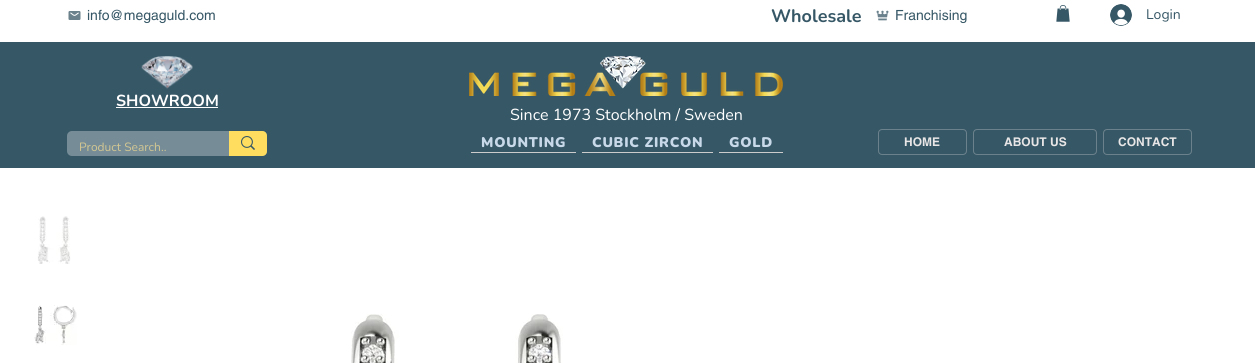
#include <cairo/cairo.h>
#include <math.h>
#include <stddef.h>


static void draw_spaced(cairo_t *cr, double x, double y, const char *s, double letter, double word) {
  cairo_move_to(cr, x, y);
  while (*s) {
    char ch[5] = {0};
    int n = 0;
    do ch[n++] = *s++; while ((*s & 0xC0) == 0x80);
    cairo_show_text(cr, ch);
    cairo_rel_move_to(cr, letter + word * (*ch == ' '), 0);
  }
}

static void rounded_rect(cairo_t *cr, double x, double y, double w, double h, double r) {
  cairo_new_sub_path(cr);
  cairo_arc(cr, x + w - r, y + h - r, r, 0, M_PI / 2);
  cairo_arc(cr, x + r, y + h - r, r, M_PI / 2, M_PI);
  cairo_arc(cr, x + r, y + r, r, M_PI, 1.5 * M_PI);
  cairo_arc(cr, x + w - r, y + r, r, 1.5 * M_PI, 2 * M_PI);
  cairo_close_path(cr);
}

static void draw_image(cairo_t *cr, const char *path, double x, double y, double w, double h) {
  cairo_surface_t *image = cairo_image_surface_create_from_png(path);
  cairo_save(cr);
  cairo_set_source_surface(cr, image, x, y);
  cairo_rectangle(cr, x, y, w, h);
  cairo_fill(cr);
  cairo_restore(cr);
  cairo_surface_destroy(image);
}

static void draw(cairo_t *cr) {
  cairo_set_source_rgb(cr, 1, 1, 1);
  cairo_paint(cr);
  draw_image(cr, "images/1.png", 68, 11, 13, 9);
  draw_image(cr, "images/2.png", 876, 10, 13, 11);
  draw_image(cr, "images/3.png", 1056, 5, 14, 17);
  draw_image(cr, "images/4.png", 1110, 4, 22, 22);
  cairo_set_source_rgb(cr, 54 / 255.0, 87 / 255.0, 102 / 255.0);
  cairo_rectangle(cr, 0, 42, 1255, 126);
  cairo_fill(cr);
  draw_image(cr, "images/5.png", 141, 56, 52, 33);
  cairo_set_source_rgb(cr, 1, 1, 1);
  cairo_rectangle(cr, 116, 107, 102, 1);
  cairo_fill(cr);
  cairo_set_source_rgb(cr, 118 / 255.0, 141 / 255.0, 151 / 255.0);
  rounded_rect(cr, 67, 131, 200, 25, 5);
  cairo_fill(cr);
  cairo_set_source_rgb(cr, 1, 222 / 255.0, 95 / 255.0);
  cairo_new_path(cr);
  cairo_move_to(cr, 229, 131);
  cairo_line_to(cr, 262, 131);
  cairo_curve_to(cr, 265, 131, 267, 133, 267, 136);
  cairo_line_to(cr, 267, 151);
  cairo_curve_to(cr, 267, 154, 265, 156, 262, 156);
  cairo_line_to(cr, 229, 156);
  cairo_close_path(cr);
  cairo_fill(cr);
  draw_image(cr, "images/6.png", 241, 136, 14, 14);
  draw_image(cr, "images/7.png", 469, 56, 314, 40);
  cairo_set_source_rgb(cr, 204 / 255.0, 204 / 255.0, 204 / 255.0);
  cairo_rectangle(cr, 471, 152, 105, 1);
  cairo_fill(cr);
  cairo_rectangle(cr, 582, 152, 131, 1);
  cairo_fill(cr);
  cairo_rectangle(cr, 719, 152, 64, 1);
  cairo_fill(cr);
  rounded_rect(cr, 878.5, 129.5, 88, 25, 3.5);
  cairo_set_source_rgb(cr, 107 / 255.0, 130 / 255.0, 140 / 255.0);
  cairo_set_line_width(cr, 1);
  cairo_stroke(cr);
  rounded_rect(cr, 973.5, 129.5, 123, 25, 3.5);
  cairo_stroke(cr);
  rounded_rect(cr, 1103.5, 129.5, 88, 25, 3.5);
  cairo_stroke(cr);
  draw_image(cr, "images/8.png", 37, 216, 34, 48);
  draw_image(cr, "images/9.png", 34, 305, 43, 40);
  draw_image(cr, "images/10.png", 351, 314, 212, 49);
  cairo_select_font_face(cr, "helvetica", CAIRO_FONT_SLANT_NORMAL, CAIRO_FONT_WEIGHT_NORMAL);
  cairo_set_font_size(cr, 14);
  cairo_set_source_rgb(cr, 54 / 255.0, 87 / 255.0, 102 / 255.0);
  cairo_move_to(cr, 87, 20);
  cairo_show_text(cr, "info@megaguld.com");
  cairo_select_font_face(cr, "Nunito", CAIRO_FONT_SLANT_NORMAL, CAIRO_FONT_WEIGHT_BOLD);
  cairo_set_font_size(cr, 18);
  cairo_move_to(cr, 771, 22);
  cairo_show_text(cr, "Wholesale");
  cairo_select_font_face(cr, "helvetica", CAIRO_FONT_SLANT_NORMAL, CAIRO_FONT_WEIGHT_NORMAL);
  cairo_set_font_size(cr, 14);
  cairo_move_to(cr, 895, 20);
  cairo_show_text(cr, "Franchising");
  cairo_select_font_face(cr, "Nunito", CAIRO_FONT_SLANT_NORMAL, CAIRO_FONT_WEIGHT_NORMAL);
  cairo_move_to(cr, 1146, 19);
  cairo_show_text(cr, "Login");
  cairo_select_font_face(cr, "Nunito", CAIRO_FONT_SLANT_NORMAL, CAIRO_FONT_WEIGHT_BOLD);
  cairo_set_font_size(cr, 16);
  cairo_set_source_rgb(cr, 1, 1, 1);
  cairo_move_to(cr, 116, 106);
  cairo_show_text(cr, "SHOWROOM");
  cairo_select_font_face(cr, "Nunito", CAIRO_FONT_SLANT_NORMAL, CAIRO_FONT_WEIGHT_NORMAL);
  cairo_set_font_size(cr, 12);
  cairo_set_source_rgb(cr, 212 / 255.0, 199 / 255.0, 146 / 255.0);
  cairo_move_to(cr, 79, 151);
  cairo_show_text(cr, "Product Search..");
  cairo_set_font_size(cr, 16);
  cairo_set_source_rgb(cr, 1, 1, 1);
  cairo_move_to(cr, 510, 120);
  cairo_show_text(cr, "Since 1973 Stockholm / Sweden");
  cairo_select_font_face(cr, "Nunito Black", CAIRO_FONT_SLANT_NORMAL, CAIRO_FONT_WEIGHT_NORMAL);
  cairo_set_font_size(cr, 14);
  cairo_set_source_rgb(cr, 200 / 255.0, 217 / 255.0, 234 / 255.0);
  draw_spaced(cr, 481, 147, "MOUNTING", 0.75, 0);
  draw_spaced(cr, 592, 147, "CUBIC ZIRCON", 0.75, 0);
  draw_spaced(cr, 729, 147, "GOLD", 0.75, 0);
  cairo_select_font_face(cr, "helvetica", CAIRO_FONT_SLANT_NORMAL, CAIRO_FONT_WEIGHT_BOLD);
  cairo_set_font_size(cr, 12);
  cairo_set_source_rgb(cr, 232 / 255.0, 230 / 255.0, 230 / 255.0);
  cairo_move_to(cr, 904, 146);
  cairo_show_text(cr, "HOME");
  cairo_move_to(cr, 1004, 146);
  cairo_show_text(cr, "ABOUT US");
  cairo_move_to(cr, 1118, 146);
  cairo_show_text(cr, "CONTACT");
}

int main(void) {
  cairo_surface_t *surface = cairo_image_surface_create(CAIRO_FORMAT_RGB24, 1255, 363);
  cairo_t *cr = cairo_create(surface);
  cairo_font_options_t *options = cairo_font_options_create();
  cairo_font_options_set_hint_metrics(options, CAIRO_HINT_METRICS_OFF);
  cairo_font_options_set_hint_style(options, CAIRO_HINT_STYLE_NONE);
  cairo_set_font_options(cr, options);
  cairo_set_miter_limit(cr, 4);
  draw(cr);
  cairo_surface_write_to_png(surface, "out.png");
  cairo_font_options_destroy(options);
  cairo_destroy(cr);
  cairo_surface_destroy(surface);
  return 0;
}
